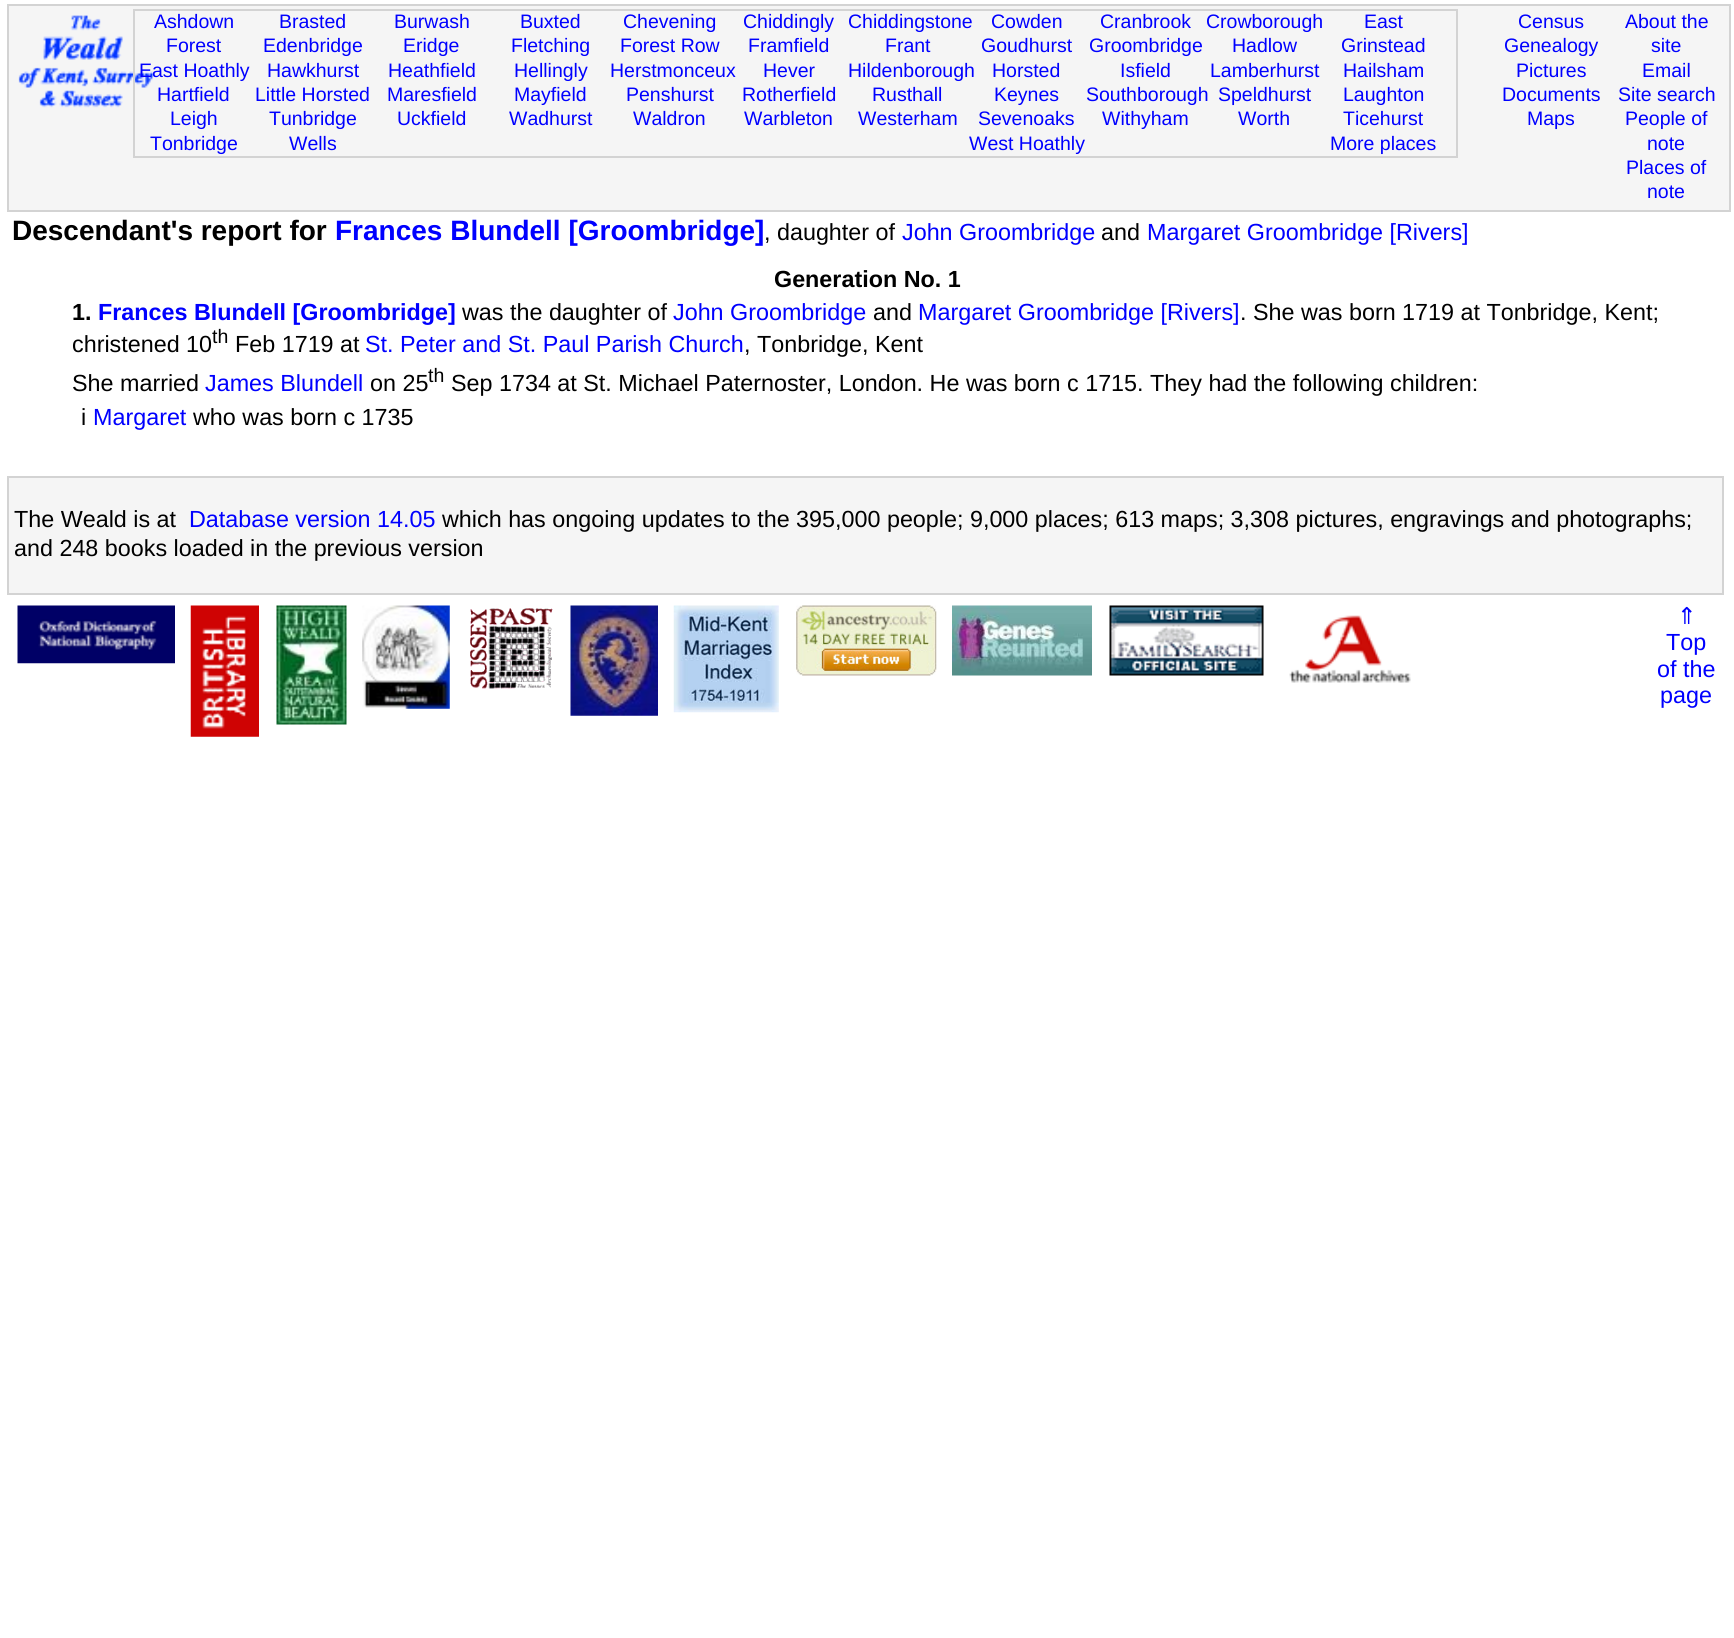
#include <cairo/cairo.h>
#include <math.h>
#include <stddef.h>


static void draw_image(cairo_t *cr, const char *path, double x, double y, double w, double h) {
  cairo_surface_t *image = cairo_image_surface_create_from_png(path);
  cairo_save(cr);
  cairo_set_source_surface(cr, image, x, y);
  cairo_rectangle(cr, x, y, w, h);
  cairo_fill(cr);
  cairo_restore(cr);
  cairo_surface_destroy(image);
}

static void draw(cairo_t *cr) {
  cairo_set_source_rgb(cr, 1, 1, 1);
  cairo_paint(cr);
  cairo_set_source_rgb(cr, 245 / 255.0, 245 / 255.0, 245 / 255.0);
  cairo_rectangle(cr, 8, 5, 1722, 206);
  cairo_fill_preserve(cr);
  cairo_set_source_rgb(cr, 211 / 255.0, 211 / 255.0, 211 / 255.0);
  cairo_stroke(cr);
  draw_image(cr, "images/1.png", 18, 15, 137, 93);
  cairo_rectangle(cr, 134, 10, 1323, 147);
  cairo_stroke(cr);
  cairo_set_source_rgb(cr, 245 / 255.0, 245 / 255.0, 245 / 255.0);
  cairo_rectangle(cr, 8, 477, 1715, 117);
  cairo_fill_preserve(cr);
  cairo_set_source_rgb(cr, 211 / 255.0, 211 / 255.0, 211 / 255.0);
  cairo_stroke(cr);
  draw_image(cr, "images/2.png", 17, 605, 158, 59);
  draw_image(cr, "images/3.png", 190, 605, 69, 132);
  draw_image(cr, "images/4.png", 276, 605, 71, 120);
  draw_image(cr, "images/5.png", 362, 605, 88, 104);
  draw_image(cr, "images/6.png", 470, 608, 83, 81);
  draw_image(cr, "images/7.png", 570, 605, 88, 111);
  draw_image(cr, "images/8.png", 673, 605, 106, 108);
  draw_image(cr, "images/9.png", 796, 605, 141, 71);
  draw_image(cr, "images/10.png", 952, 605, 140, 71);
  draw_image(cr, "images/11.png", 1109, 605, 155, 71);
  draw_image(cr, "images/12.png", 1289, 615, 122, 68);
  cairo_select_font_face(cr, "Liberation Sans", CAIRO_FONT_SLANT_NORMAL, CAIRO_FONT_WEIGHT_NORMAL);
  cairo_set_font_size(cr, 19.5);
  cairo_set_source_rgb(cr, 0, 0, 1);
  cairo_move_to(cr, 154, 28);
  cairo_show_text(cr, "Ashdown");
  cairo_move_to(cr, 166, 52);
  cairo_show_text(cr, "Forest");
  cairo_move_to(cr, 139, 77);
  cairo_show_text(cr, "East Hoathly");
  cairo_move_to(cr, 157, 101);
  cairo_show_text(cr, "Hartfield");
  cairo_move_to(cr, 170, 125);
  cairo_show_text(cr, "Leigh");
  cairo_move_to(cr, 150, 150);
  cairo_show_text(cr, "Tonbridge");
  cairo_move_to(cr, 279, 28);
  cairo_show_text(cr, "Brasted");
  cairo_move_to(cr, 263, 52);
  cairo_show_text(cr, "Edenbridge");
  cairo_move_to(cr, 267, 77);
  cairo_show_text(cr, "Hawkhurst");
  cairo_move_to(cr, 255, 101);
  cairo_show_text(cr, "Little Horsted");
  cairo_move_to(cr, 269, 125);
  cairo_show_text(cr, "Tunbridge");
  cairo_move_to(cr, 289, 150);
  cairo_show_text(cr, "Wells");
  cairo_move_to(cr, 394, 28);
  cairo_show_text(cr, "Burwash");
  cairo_move_to(cr, 403, 52);
  cairo_show_text(cr, "Eridge");
  cairo_move_to(cr, 388, 77);
  cairo_show_text(cr, "Heathfield");
  cairo_move_to(cr, 387, 101);
  cairo_show_text(cr, "Maresfield");
  cairo_move_to(cr, 397, 125);
  cairo_show_text(cr, "Uckfield");
  cairo_move_to(cr, 520, 28);
  cairo_show_text(cr, "Buxted");
  cairo_move_to(cr, 511, 52);
  cairo_show_text(cr, "Fletching");
  cairo_move_to(cr, 514, 77);
  cairo_show_text(cr, "Hellingly");
  cairo_move_to(cr, 514, 101);
  cairo_show_text(cr, "Mayfield");
  cairo_move_to(cr, 509, 125);
  cairo_show_text(cr, "Wadhurst");
  cairo_move_to(cr, 623, 28);
  cairo_show_text(cr, "Chevening");
  cairo_move_to(cr, 620, 52);
  cairo_show_text(cr, "Forest Row");
  cairo_move_to(cr, 610, 77);
  cairo_show_text(cr, "Herstmonceux");
  cairo_move_to(cr, 626, 101);
  cairo_show_text(cr, "Penshurst");
  cairo_move_to(cr, 633, 125);
  cairo_show_text(cr, "Waldron");
  cairo_move_to(cr, 743, 28);
  cairo_show_text(cr, "Chiddingly");
  cairo_move_to(cr, 748, 52);
  cairo_show_text(cr, "Framfield");
  cairo_move_to(cr, 763, 77);
  cairo_show_text(cr, "Hever");
  cairo_move_to(cr, 742, 101);
  cairo_show_text(cr, "Rotherfield");
  cairo_move_to(cr, 744, 125);
  cairo_show_text(cr, "Warbleton");
  cairo_move_to(cr, 848, 28);
  cairo_show_text(cr, "Chiddingstone");
  cairo_move_to(cr, 885, 52);
  cairo_show_text(cr, "Frant");
  cairo_move_to(cr, 848, 77);
  cairo_show_text(cr, "Hildenborough");
  cairo_move_to(cr, 872, 101);
  cairo_show_text(cr, "Rusthall");
  cairo_move_to(cr, 858, 125);
  cairo_show_text(cr, "Westerham");
  cairo_move_to(cr, 991, 28);
  cairo_show_text(cr, "Cowden");
  cairo_move_to(cr, 981, 52);
  cairo_show_text(cr, "Goudhurst");
  cairo_move_to(cr, 992, 77);
  cairo_show_text(cr, "Horsted");
  cairo_move_to(cr, 994, 101);
  cairo_show_text(cr, "Keynes");
  cairo_move_to(cr, 978, 125);
  cairo_show_text(cr, "Sevenoaks");
  cairo_move_to(cr, 969, 150);
  cairo_show_text(cr, "West Hoathly");
  cairo_move_to(cr, 1100, 28);
  cairo_show_text(cr, "Cranbrook");
  cairo_move_to(cr, 1089, 52);
  cairo_show_text(cr, "Groombridge");
  cairo_move_to(cr, 1120, 77);
  cairo_show_text(cr, "Isfield");
  cairo_move_to(cr, 1086, 101);
  cairo_show_text(cr, "Southborough");
  cairo_move_to(cr, 1102, 125);
  cairo_show_text(cr, "Withyham");
  cairo_move_to(cr, 1206, 28);
  cairo_show_text(cr, "Crowborough");
  cairo_move_to(cr, 1232, 52);
  cairo_show_text(cr, "Hadlow");
  cairo_move_to(cr, 1210, 77);
  cairo_show_text(cr, "Lamberhurst");
  cairo_move_to(cr, 1218, 101);
  cairo_show_text(cr, "Speldhurst");
  cairo_move_to(cr, 1238, 125);
  cairo_show_text(cr, "Worth");
  cairo_move_to(cr, 1364, 28);
  cairo_show_text(cr, "East");
  cairo_move_to(cr, 1341, 52);
  cairo_show_text(cr, "Grinstead");
  cairo_move_to(cr, 1343, 77);
  cairo_show_text(cr, "Hailsham");
  cairo_move_to(cr, 1343, 101);
  cairo_show_text(cr, "Laughton");
  cairo_move_to(cr, 1343, 125);
  cairo_show_text(cr, "Ticehurst");
  cairo_move_to(cr, 1330, 150);
  cairo_show_text(cr, "More places");
  cairo_move_to(cr, 1518, 28);
  cairo_show_text(cr, "Census");
  cairo_move_to(cr, 1504, 52);
  cairo_show_text(cr, "Genealogy");
  cairo_move_to(cr, 1516, 77);
  cairo_show_text(cr, "Pictures");
  cairo_move_to(cr, 1502, 101);
  cairo_show_text(cr, "Documents");
  cairo_move_to(cr, 1527, 125);
  cairo_show_text(cr, "Maps");
  cairo_move_to(cr, 1625, 28);
  cairo_show_text(cr, "About the");
  cairo_move_to(cr, 1651, 52);
  cairo_show_text(cr, "site");
  cairo_move_to(cr, 1642, 77);
  cairo_show_text(cr, "Email");
  cairo_move_to(cr, 1618, 101);
  cairo_show_text(cr, "Site search");
  cairo_move_to(cr, 1625, 125);
  cairo_show_text(cr, "People of");
  cairo_move_to(cr, 1647, 150);
  cairo_show_text(cr, "note");
  cairo_move_to(cr, 1626, 174);
  cairo_show_text(cr, "Places of");
  cairo_move_to(cr, 1647, 198);
  cairo_show_text(cr, "note");
  cairo_select_font_face(cr, "Liberation Sans", CAIRO_FONT_SLANT_NORMAL, CAIRO_FONT_WEIGHT_BOLD);
  cairo_set_font_size(cr, 28);
  cairo_set_source_rgb(cr, 0, 0, 0);
  cairo_move_to(cr, 12, 240);
  cairo_show_text(cr, "Descendant's report for");
  cairo_set_source_rgb(cr, 0, 0, 1);
  cairo_move_to(cr, 335, 240);
  cairo_show_text(cr, "Frances Blundell [Groombridge]");
  cairo_select_font_face(cr, "Liberation Sans", CAIRO_FONT_SLANT_NORMAL, CAIRO_FONT_WEIGHT_NORMAL);
  cairo_set_font_size(cr, 23.33);
  cairo_set_source_rgb(cr, 0, 0, 0);
  cairo_move_to(cr, 764, 240);
  cairo_show_text(cr, ", daughter of");
  cairo_set_source_rgb(cr, 0, 0, 1);
  cairo_move_to(cr, 902, 240);
  cairo_show_text(cr, "John Groombridge");
  cairo_set_source_rgb(cr, 0, 0, 0);
  cairo_move_to(cr, 1101, 240);
  cairo_show_text(cr, "and");
  cairo_set_source_rgb(cr, 0, 0, 1);
  cairo_move_to(cr, 1147, 240);
  cairo_show_text(cr, "Margaret Groombridge [Rivers]");
  cairo_select_font_face(cr, "Liberation Sans", CAIRO_FONT_SLANT_NORMAL, CAIRO_FONT_WEIGHT_BOLD);
  cairo_set_source_rgb(cr, 0, 0, 0);
  cairo_move_to(cr, 774, 287);
  cairo_show_text(cr, "Generation No. 1");
  cairo_move_to(cr, 72, 320);
  cairo_show_text(cr, "1.");
  cairo_set_source_rgb(cr, 0, 0, 1);
  cairo_move_to(cr, 98, 320);
  cairo_show_text(cr, "Frances Blundell [Groombridge]");
  cairo_select_font_face(cr, "Liberation Sans", CAIRO_FONT_SLANT_NORMAL, CAIRO_FONT_WEIGHT_NORMAL);
  cairo_set_source_rgb(cr, 0, 0, 0);
  cairo_move_to(cr, 462, 320);
  cairo_show_text(cr, "was the daughter of");
  cairo_set_source_rgb(cr, 0, 0, 1);
  cairo_move_to(cr, 673, 320);
  cairo_show_text(cr, "John Groombridge");
  cairo_set_source_rgb(cr, 0, 0, 0);
  cairo_move_to(cr, 873, 320);
  cairo_show_text(cr, "and");
  cairo_set_source_rgb(cr, 0, 0, 1);
  cairo_move_to(cr, 918, 320);
  cairo_show_text(cr, "Margaret Groombridge [Rivers]");
  cairo_set_source_rgb(cr, 0, 0, 0);
  cairo_move_to(cr, 1240, 320);
  cairo_show_text(cr, ". She was born 1719 at Tonbridge, Kent;");
  cairo_move_to(cr, 72, 352);
  cairo_show_text(cr, "christened 10");
  cairo_set_font_size(cr, 19.5);
  cairo_move_to(cr, 212, 343);
  cairo_show_text(cr, "th");
  cairo_set_font_size(cr, 23.33);
  cairo_move_to(cr, 235, 352);
  cairo_show_text(cr, "Feb 1719 at");
  cairo_set_source_rgb(cr, 0, 0, 1);
  cairo_move_to(cr, 365, 352);
  cairo_show_text(cr, "St. Peter and St. Paul Parish Church");
  cairo_set_source_rgb(cr, 0, 0, 0);
  cairo_move_to(cr, 744, 352);
  cairo_show_text(cr, ", Tonbridge, Kent");
  cairo_move_to(cr, 72, 391);
  cairo_show_text(cr, "She married");
  cairo_set_source_rgb(cr, 0, 0, 1);
  cairo_move_to(cr, 205, 391);
  cairo_show_text(cr, "James Blundell");
  cairo_set_source_rgb(cr, 0, 0, 0);
  cairo_move_to(cr, 370, 391);
  cairo_show_text(cr, "on 25");
  cairo_set_font_size(cr, 19.5);
  cairo_move_to(cr, 428, 382);
  cairo_show_text(cr, "th");
  cairo_set_font_size(cr, 23.33);
  cairo_move_to(cr, 451, 391);
  cairo_show_text(cr, "Sep 1734 at St. Michael Paternoster, London. He was born c 1715. They had the following children:");
  cairo_move_to(cr, 81, 425);
  cairo_show_text(cr, "i");
  cairo_set_source_rgb(cr, 0, 0, 1);
  cairo_move_to(cr, 93, 425);
  cairo_show_text(cr, "Margaret");
  cairo_set_source_rgb(cr, 0, 0, 0);
  cairo_move_to(cr, 193, 425);
  cairo_show_text(cr, "who was born c 1735");
  cairo_move_to(cr, 14, 527);
  cairo_show_text(cr, "The Weald is at");
  cairo_set_source_rgb(cr, 0, 0, 1);
  cairo_move_to(cr, 189, 527);
  cairo_show_text(cr, "Database version 14.05");
  cairo_set_source_rgb(cr, 0, 0, 0);
  cairo_move_to(cr, 442, 527);
  cairo_show_text(cr, "which has ongoing updates to the 395,000 people; 9,000 places; 613 maps; 3,308 pictures, engravings and photographs;");
  cairo_move_to(cr, 14, 556);
  cairo_show_text(cr, "and 248 books loaded in the previous version");
  cairo_select_font_face(cr, "DejaVu Sans", CAIRO_FONT_SLANT_NORMAL, CAIRO_FONT_WEIGHT_NORMAL);
  cairo_set_source_rgb(cr, 0, 0, 1);
  cairo_move_to(cr, 1677, 624);
  cairo_show_text(cr, "⇑");
  cairo_select_font_face(cr, "Liberation Sans", CAIRO_FONT_SLANT_NORMAL, CAIRO_FONT_WEIGHT_NORMAL);
  cairo_move_to(cr, 1666, 650);
  cairo_show_text(cr, "Top");
  cairo_move_to(cr, 1657, 677);
  cairo_show_text(cr, "of the");
  cairo_move_to(cr, 1660, 703);
  cairo_show_text(cr, "page");
}

int main(void) {
  cairo_surface_t *surface = cairo_image_surface_create(CAIRO_FORMAT_RGB24, 1734, 1638);
  cairo_t *cr = cairo_create(surface);
  cairo_font_options_t *options = cairo_font_options_create();
  cairo_font_options_set_hint_metrics(options, CAIRO_HINT_METRICS_OFF);
  cairo_font_options_set_hint_style(options, CAIRO_HINT_STYLE_NONE);
  cairo_set_font_options(cr, options);
  cairo_set_miter_limit(cr, 4);
  draw(cr);
  cairo_surface_write_to_png(surface, "out.png");
  cairo_font_options_destroy(options);
  cairo_destroy(cr);
  cairo_surface_destroy(surface);
  return 0;
}
